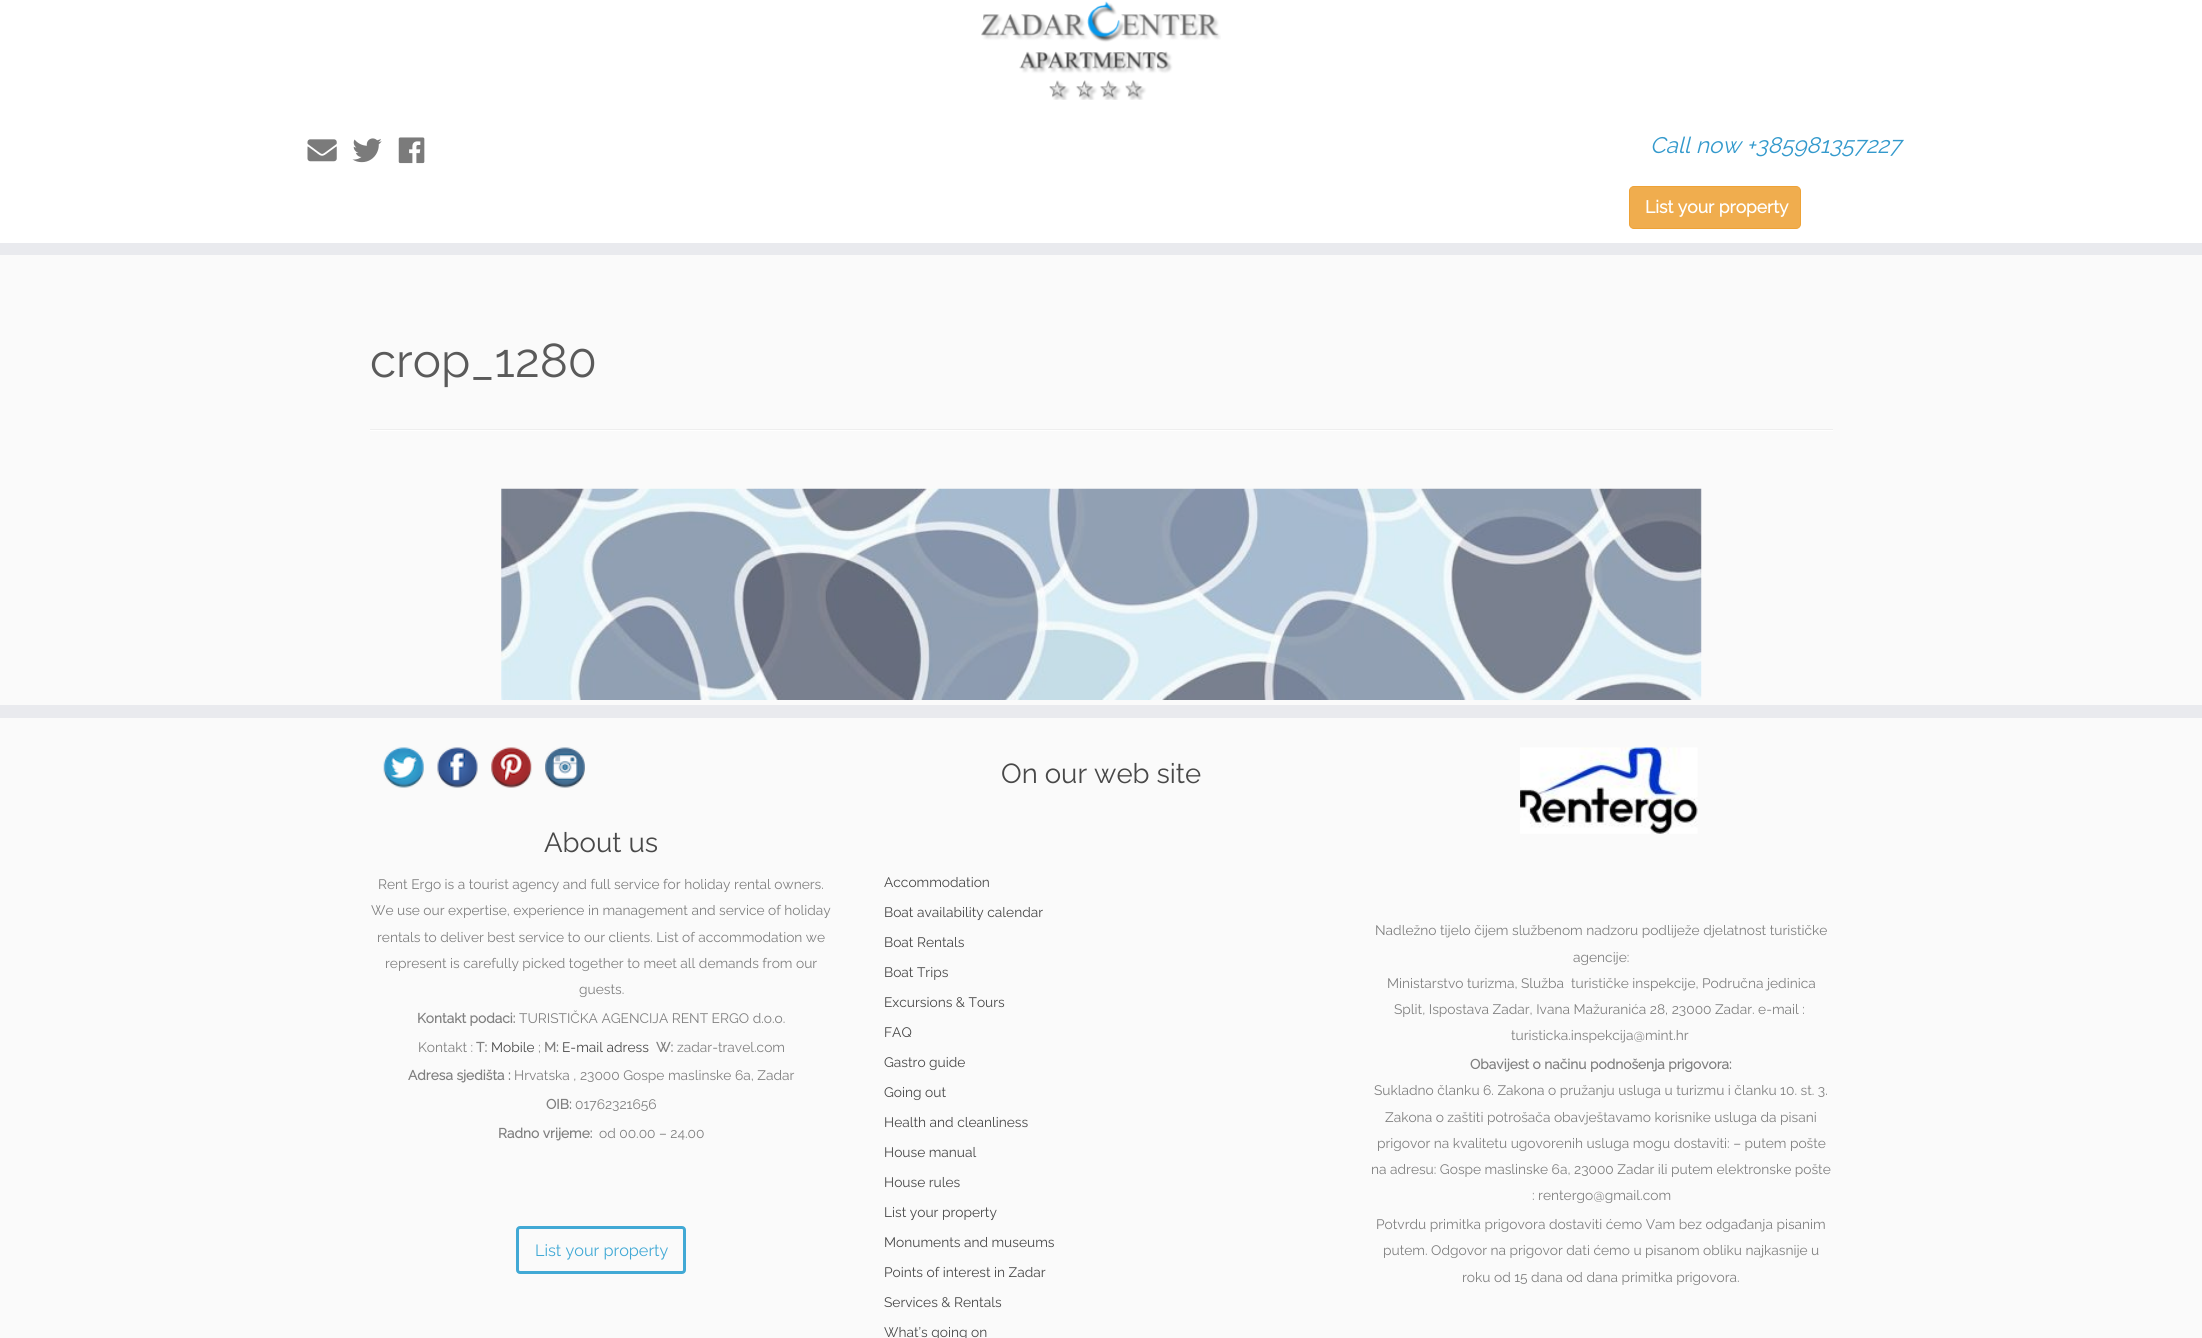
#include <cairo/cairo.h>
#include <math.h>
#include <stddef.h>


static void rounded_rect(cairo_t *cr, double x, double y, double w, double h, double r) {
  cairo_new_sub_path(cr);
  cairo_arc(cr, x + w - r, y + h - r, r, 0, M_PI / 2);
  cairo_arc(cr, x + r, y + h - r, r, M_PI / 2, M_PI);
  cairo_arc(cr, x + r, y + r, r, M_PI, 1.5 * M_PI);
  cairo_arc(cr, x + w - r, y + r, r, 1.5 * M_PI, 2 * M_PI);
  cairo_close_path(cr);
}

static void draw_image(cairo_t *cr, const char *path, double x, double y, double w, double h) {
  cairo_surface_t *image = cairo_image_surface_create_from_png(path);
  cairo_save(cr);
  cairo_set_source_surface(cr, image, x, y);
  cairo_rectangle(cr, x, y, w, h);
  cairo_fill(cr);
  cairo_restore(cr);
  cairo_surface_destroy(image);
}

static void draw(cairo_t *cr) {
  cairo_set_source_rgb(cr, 250 / 255.0, 250 / 255.0, 250 / 255.0);
  cairo_paint(cr);
  cairo_set_source_rgb(cr, 1, 1, 1);
  cairo_rectangle(cr, 0, 0, 2202, 243);
  cairo_fill(cr);
  cairo_set_source_rgb(cr, 233 / 255.0, 234 / 255.0, 238 / 255.0);
  cairo_rectangle(cr, 0, 243, 2202, 12);
  cairo_fill(cr);
  draw_image(cr, "images/1.png", 981, 1, 240, 99);
  draw_image(cr, "images/2.png", 307, 139, 30, 23);
  draw_image(cr, "images/3.png", 352, 138, 30, 25);
  draw_image(cr, "images/4.png", 398, 137, 27, 27);
  cairo_set_source_rgb(cr, 240 / 255.0, 173 / 255.0, 78 / 255.0);
  rounded_rect(cr, 1629.5, 186.5, 171, 42, 4.5);
  cairo_fill_preserve(cr);
  cairo_set_source_rgb(cr, 238 / 255.0, 162 / 255.0, 54 / 255.0);
  cairo_set_line_width(cr, 1);
  cairo_stroke(cr);
  cairo_set_source_rgb(cr, 238 / 255.0, 238 / 255.0, 238 / 255.0);
  cairo_rectangle(cr, 370, 429, 1463, 1);
  cairo_fill(cr);
  cairo_set_source_rgb(cr, 1, 1, 1);
  cairo_rectangle(cr, 370, 430, 1463, 1);
  cairo_fill(cr);
  draw_image(cr, "images/5.png", 501, 488, 1201, 212);
  cairo_set_source_rgb(cr, 233 / 255.0, 234 / 255.0, 238 / 255.0);
  cairo_rectangle(cr, 0, 705, 2202, 13);
  cairo_fill(cr);
  draw_image(cr, "images/6.png", 383, 747, 41, 41);
  draw_image(cr, "images/7.png", 437, 747, 41, 41);
  draw_image(cr, "images/8.png", 491, 747, 41, 41);
  draw_image(cr, "images/9.png", 545, 747, 40, 41);
  rounded_rect(cr, 517.5, 1227.5, 167, 45, 2.5);
  cairo_set_source_rgb(cr, 65 / 255.0, 169 / 255.0, 213 / 255.0);
  cairo_set_line_width(cr, 3);
  cairo_stroke(cr);
  draw_image(cr, "images/10.png", 1520, 747, 178, 87);
  cairo_select_font_face(cr, "Raleway Thin", CAIRO_FONT_SLANT_ITALIC, CAIRO_FONT_WEIGHT_NORMAL);
  cairo_set_font_size(cr, 22.5);
  cairo_set_source_rgb(cr, 51 / 255.0, 153 / 255.0, 204 / 255.0);
  cairo_move_to(cr, 1650, 153);
  cairo_show_text(cr, "Call now +385981357227");
  cairo_select_font_face(cr, "Raleway", CAIRO_FONT_SLANT_NORMAL, CAIRO_FONT_WEIGHT_BOLD);
  cairo_set_font_size(cr, 17.5);
  cairo_set_source_rgb(cr, 1, 1, 1);
  cairo_move_to(cr, 1645, 213);
  cairo_show_text(cr, "List your property");
  cairo_select_font_face(cr, "Raleway Thin", CAIRO_FONT_SLANT_NORMAL, CAIRO_FONT_WEIGHT_NORMAL);
  cairo_set_font_size(cr, 47.5);
  cairo_set_source_rgb(cr, 90 / 255.0, 90 / 255.0, 90 / 255.0);
  cairo_move_to(cr, 370, 377);
  cairo_show_text(cr, "crop_1280");
  cairo_set_font_size(cr, 27.5);
  cairo_set_source_rgb(cr, 72 / 255.0, 72 / 255.0, 72 / 255.0);
  cairo_move_to(cr, 544, 852);
  cairo_show_text(cr, "About us");
  cairo_set_font_size(cr, 13.75);
  cairo_set_source_rgb(cr, 128 / 255.0, 128 / 255.0, 128 / 255.0);
  cairo_move_to(cr, 378, 889);
  cairo_show_text(cr, "Rent Ergo is a tourist agency and full service for holiday rental owners.");
  cairo_move_to(cr, 371, 915);
  cairo_show_text(cr, "We use our expertise, experience in management and service of holiday");
  cairo_move_to(cr, 377, 942);
  cairo_show_text(cr, "rentals to deliver best service to our clients. List of accommodation we");
  cairo_move_to(cr, 385, 968);
  cairo_show_text(cr, "represent is carefully picked together to meet all demands from our");
  cairo_move_to(cr, 579, 994);
  cairo_show_text(cr, "guests.");
  cairo_select_font_face(cr, "Raleway", CAIRO_FONT_SLANT_NORMAL, CAIRO_FONT_WEIGHT_BOLD);
  cairo_move_to(cr, 417, 1023);
  cairo_show_text(cr, "Kontakt podaci:");
  cairo_select_font_face(cr, "Raleway Thin", CAIRO_FONT_SLANT_NORMAL, CAIRO_FONT_WEIGHT_NORMAL);
  cairo_move_to(cr, 519, 1023);
  cairo_show_text(cr, "TURISTIČKA AGENCIJA RENT ERGO d.o.o.");
  cairo_move_to(cr, 418, 1052);
  cairo_show_text(cr, "Kontakt :");
  cairo_select_font_face(cr, "Raleway", CAIRO_FONT_SLANT_NORMAL, CAIRO_FONT_WEIGHT_BOLD);
  cairo_move_to(cr, 476, 1052);
  cairo_show_text(cr, "T:");
  cairo_select_font_face(cr, "Raleway Thin", CAIRO_FONT_SLANT_NORMAL, CAIRO_FONT_WEIGHT_NORMAL);
  cairo_set_source_rgb(cr, 72 / 255.0, 72 / 255.0, 72 / 255.0);
  cairo_move_to(cr, 491, 1052);
  cairo_show_text(cr, "Mobile");
  cairo_set_source_rgb(cr, 128 / 255.0, 128 / 255.0, 128 / 255.0);
  cairo_move_to(cr, 538, 1052);
  cairo_show_text(cr, ";");
  cairo_select_font_face(cr, "Raleway", CAIRO_FONT_SLANT_NORMAL, CAIRO_FONT_WEIGHT_BOLD);
  cairo_move_to(cr, 544, 1052);
  cairo_show_text(cr, "M:");
  cairo_select_font_face(cr, "Raleway Thin", CAIRO_FONT_SLANT_NORMAL, CAIRO_FONT_WEIGHT_NORMAL);
  cairo_set_source_rgb(cr, 72 / 255.0, 72 / 255.0, 72 / 255.0);
  cairo_move_to(cr, 562, 1052);
  cairo_show_text(cr, "E-mail adress");
  cairo_select_font_face(cr, "Raleway", CAIRO_FONT_SLANT_NORMAL, CAIRO_FONT_WEIGHT_BOLD);
  cairo_set_source_rgb(cr, 128 / 255.0, 128 / 255.0, 128 / 255.0);
  cairo_move_to(cr, 656, 1052);
  cairo_show_text(cr, "W:");
  cairo_select_font_face(cr, "Raleway Thin", CAIRO_FONT_SLANT_NORMAL, CAIRO_FONT_WEIGHT_NORMAL);
  cairo_move_to(cr, 677, 1052);
  cairo_show_text(cr, "zadar-travel.com");
  cairo_select_font_face(cr, "Raleway", CAIRO_FONT_SLANT_NORMAL, CAIRO_FONT_WEIGHT_BOLD);
  cairo_move_to(cr, 408, 1080);
  cairo_show_text(cr, "Adresa sjedišta :");
  cairo_select_font_face(cr, "Raleway Thin", CAIRO_FONT_SLANT_NORMAL, CAIRO_FONT_WEIGHT_NORMAL);
  cairo_move_to(cr, 514, 1080);
  cairo_show_text(cr, "Hrvatska , 23000 Gospe maslinske 6a, Zadar");
  cairo_select_font_face(cr, "Raleway", CAIRO_FONT_SLANT_NORMAL, CAIRO_FONT_WEIGHT_BOLD);
  cairo_move_to(cr, 546, 1109);
  cairo_show_text(cr, "OIB:");
  cairo_select_font_face(cr, "Raleway Thin", CAIRO_FONT_SLANT_NORMAL, CAIRO_FONT_WEIGHT_NORMAL);
  cairo_move_to(cr, 575, 1109);
  cairo_show_text(cr, "01762321656");
  cairo_select_font_face(cr, "Raleway", CAIRO_FONT_SLANT_NORMAL, CAIRO_FONT_WEIGHT_BOLD);
  cairo_move_to(cr, 498, 1138);
  cairo_show_text(cr, "Radno vrijeme:");
  cairo_select_font_face(cr, "Raleway Thin", CAIRO_FONT_SLANT_NORMAL, CAIRO_FONT_WEIGHT_NORMAL);
  cairo_move_to(cr, 599, 1138);
  cairo_show_text(cr, "od 00.00 – 24.00");
  cairo_set_font_size(cr, 16.25);
  cairo_set_source_rgb(cr, 65 / 255.0, 169 / 255.0, 213 / 255.0);
  cairo_move_to(cr, 535, 1256);
  cairo_show_text(cr, "List your property");
  cairo_set_font_size(cr, 27.5);
  cairo_set_source_rgb(cr, 72 / 255.0, 72 / 255.0, 72 / 255.0);
  cairo_move_to(cr, 1001, 783);
  cairo_show_text(cr, "On our web site");
  cairo_set_font_size(cr, 13.75);
  cairo_move_to(cr, 884, 887);
  cairo_show_text(cr, "Accommodation");
  cairo_move_to(cr, 884, 917);
  cairo_show_text(cr, "Boat availability calendar");
  cairo_move_to(cr, 884, 947);
  cairo_show_text(cr, "Boat Rentals");
  cairo_move_to(cr, 884, 977);
  cairo_show_text(cr, "Boat Trips");
  cairo_move_to(cr, 884, 1007);
  cairo_show_text(cr, "Excursions & Tours");
  cairo_move_to(cr, 884, 1037);
  cairo_show_text(cr, "FAQ");
  cairo_move_to(cr, 884, 1067);
  cairo_show_text(cr, "Gastro guide");
  cairo_move_to(cr, 884, 1097);
  cairo_show_text(cr, "Going out");
  cairo_move_to(cr, 884, 1127);
  cairo_show_text(cr, "Health and cleanliness");
  cairo_move_to(cr, 884, 1157);
  cairo_show_text(cr, "House manual");
  cairo_move_to(cr, 884, 1187);
  cairo_show_text(cr, "House rules");
  cairo_move_to(cr, 884, 1217);
  cairo_show_text(cr, "List your property");
  cairo_move_to(cr, 884, 1247);
  cairo_show_text(cr, "Monuments and museums");
  cairo_move_to(cr, 884, 1277);
  cairo_show_text(cr, "Points of interest in Zadar");
  cairo_move_to(cr, 884, 1307);
  cairo_show_text(cr, "Services & Rentals");
  cairo_move_to(cr, 884, 1337);
  cairo_show_text(cr, "What’s going on");
  cairo_set_source_rgb(cr, 128 / 255.0, 128 / 255.0, 128 / 255.0);
  cairo_move_to(cr, 1375, 935);
  cairo_show_text(cr, "Nadležno tijelo čijem službenom nadzoru podliježe djelatnost turističke");
  cairo_move_to(cr, 1573, 962);
  cairo_show_text(cr, "agencije:");
  cairo_move_to(cr, 1387, 988);
  cairo_show_text(cr, "Ministarstvo turizma, Služba  turističke inspekcije, Područna jedinica");
  cairo_move_to(cr, 1394, 1014);
  cairo_show_text(cr, "Split, Ispostava Zadar, Ivana Mažuranića 28, 23000 Zadar. e-mail :");
  cairo_move_to(cr, 1511, 1040);
  cairo_show_text(cr, "turisticka.inspekcija@mint.hr");
  cairo_select_font_face(cr, "Raleway", CAIRO_FONT_SLANT_NORMAL, CAIRO_FONT_WEIGHT_BOLD);
  cairo_move_to(cr, 1470, 1069);
  cairo_show_text(cr, "Obavijest o načinu podnošenja prigovora:");
  cairo_select_font_face(cr, "Raleway Thin", CAIRO_FONT_SLANT_NORMAL, CAIRO_FONT_WEIGHT_NORMAL);
  cairo_move_to(cr, 1374, 1095);
  cairo_show_text(cr, "Sukladno članku 6. Zakona o pružanju usluga u turizmu i članku 10. st. 3.");
  cairo_move_to(cr, 1385, 1122);
  cairo_show_text(cr, "Zakona o zaštiti potrošača obavještavamo korisnike usluga da pisani");
  cairo_move_to(cr, 1377, 1148);
  cairo_show_text(cr, "prigovor na kvalitetu ugovorenih usluga mogu dostaviti: – putem pošte");
  cairo_move_to(cr, 1371, 1174);
  cairo_show_text(cr, "na adresu: Gospe maslinske 6a, 23000 Zadar ili putem elektronske pošte");
  cairo_move_to(cr, 1532, 1200);
  cairo_show_text(cr, ": rentergo@gmail.com");
  cairo_move_to(cr, 1376, 1229);
  cairo_show_text(cr, "Potvrdu primitka prigovora dostaviti ćemo Vam bez odgađanja pisanim");
  cairo_move_to(cr, 1383, 1255);
  cairo_show_text(cr, "putem. Odgovor na prigovor dati ćemo u pisanom obliku najkasnije u");
  cairo_move_to(cr, 1462, 1282);
  cairo_show_text(cr, "roku od 15 dana od dana primitka prigovora.");
}

int main(void) {
  cairo_surface_t *surface = cairo_image_surface_create(CAIRO_FORMAT_RGB24, 2202, 1338);
  cairo_t *cr = cairo_create(surface);
  cairo_font_options_t *options = cairo_font_options_create();
  cairo_font_options_set_hint_metrics(options, CAIRO_HINT_METRICS_OFF);
  cairo_font_options_set_hint_style(options, CAIRO_HINT_STYLE_NONE);
  cairo_set_font_options(cr, options);
  cairo_set_miter_limit(cr, 4);
  draw(cr);
  cairo_surface_write_to_png(surface, "out.png");
  cairo_font_options_destroy(options);
  cairo_destroy(cr);
  cairo_surface_destroy(surface);
  return 0;
}
